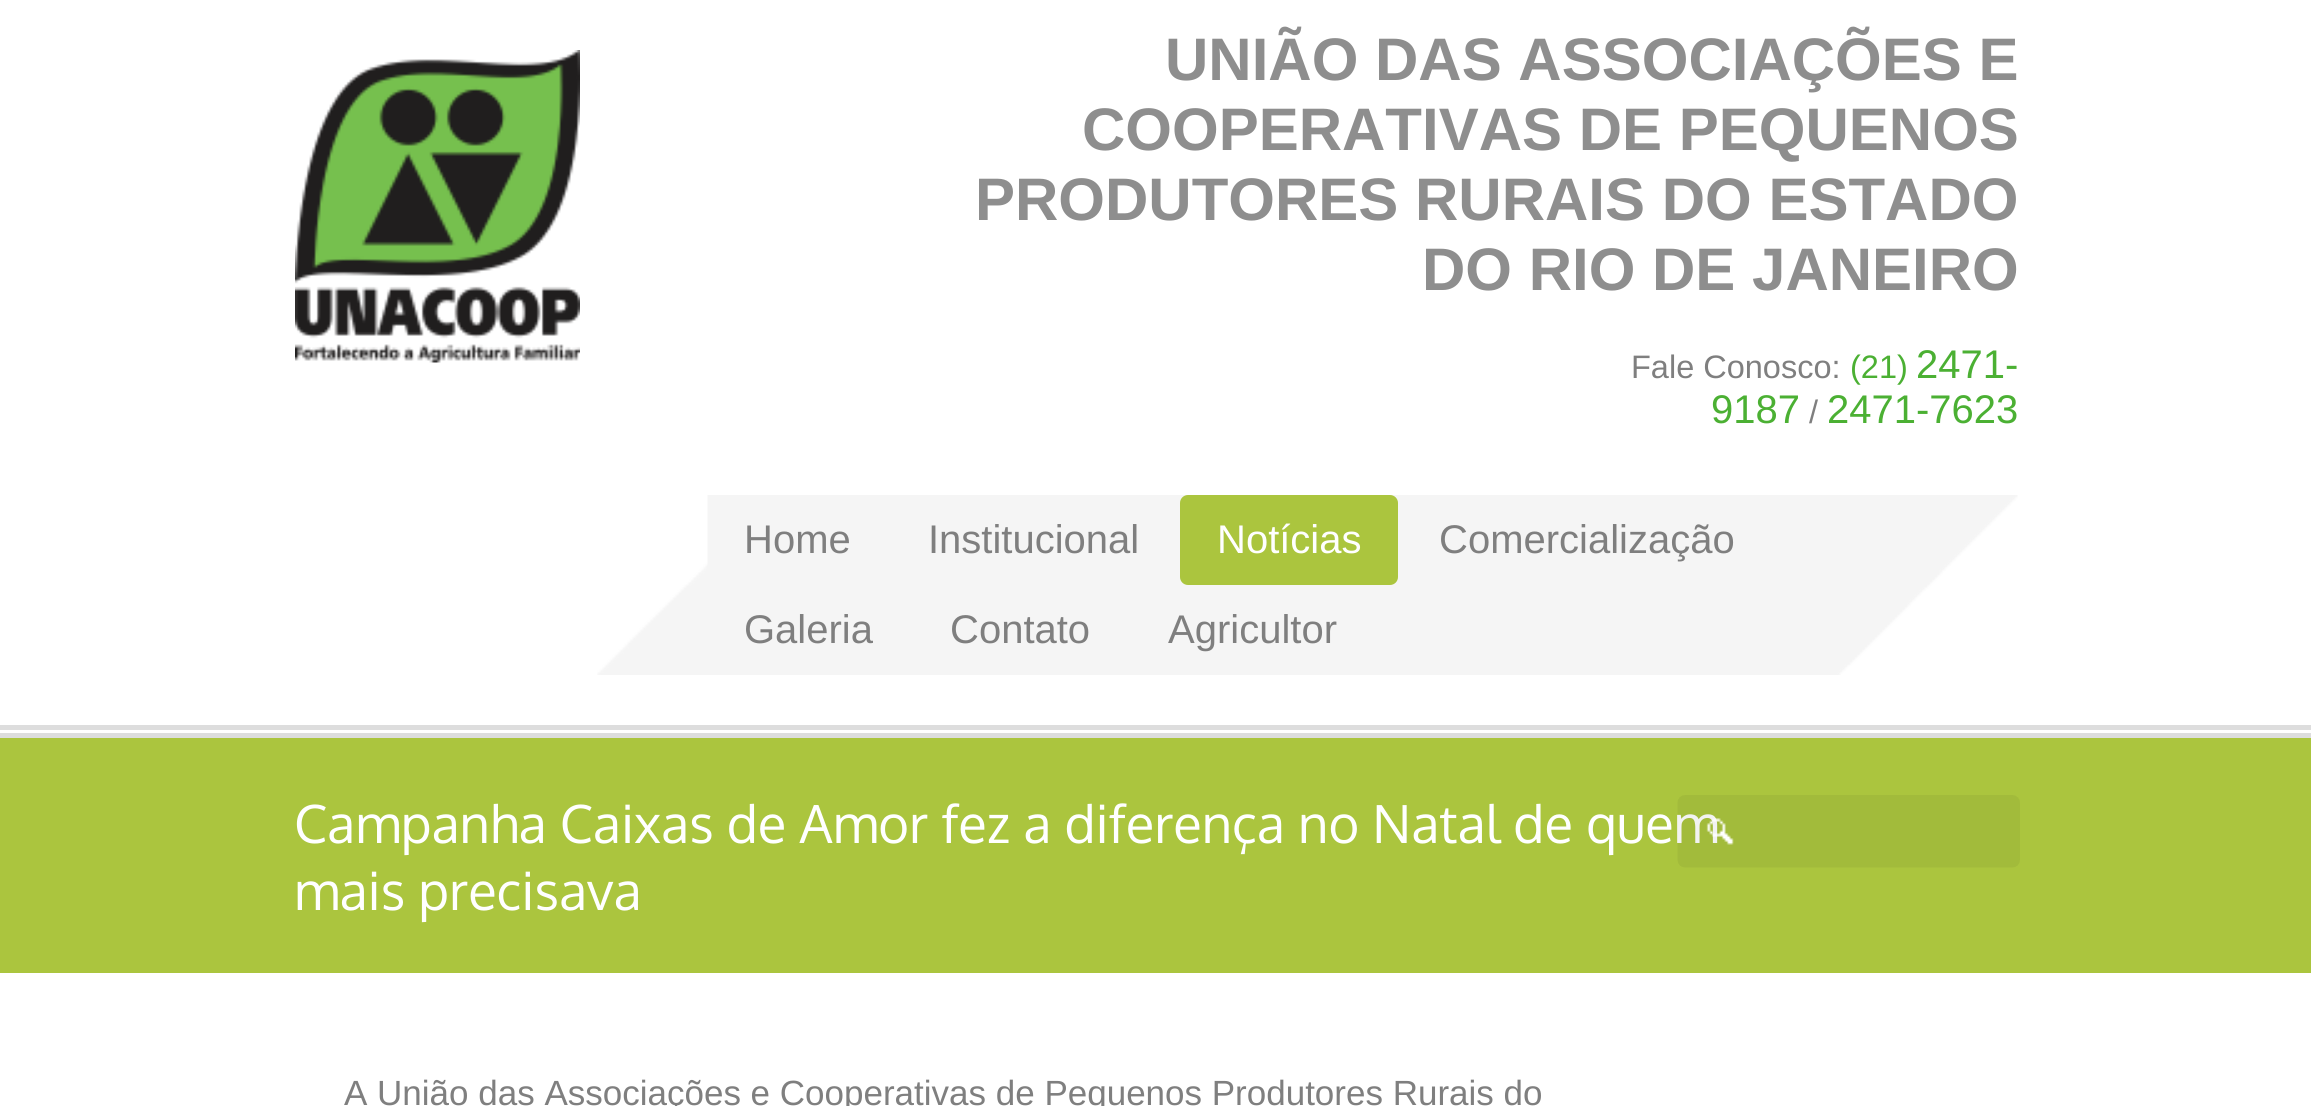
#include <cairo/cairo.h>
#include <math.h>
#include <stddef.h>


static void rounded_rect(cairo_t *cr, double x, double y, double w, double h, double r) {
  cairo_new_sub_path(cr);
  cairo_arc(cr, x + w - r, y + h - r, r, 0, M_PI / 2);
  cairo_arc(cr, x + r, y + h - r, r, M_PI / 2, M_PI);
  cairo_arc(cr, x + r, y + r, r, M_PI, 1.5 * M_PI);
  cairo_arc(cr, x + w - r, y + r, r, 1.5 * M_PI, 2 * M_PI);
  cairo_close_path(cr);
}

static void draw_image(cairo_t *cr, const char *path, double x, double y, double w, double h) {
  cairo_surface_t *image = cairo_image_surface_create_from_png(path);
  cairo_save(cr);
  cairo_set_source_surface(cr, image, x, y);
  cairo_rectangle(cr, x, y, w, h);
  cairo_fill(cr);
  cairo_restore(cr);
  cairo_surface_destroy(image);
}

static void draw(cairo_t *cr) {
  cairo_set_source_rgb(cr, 1, 1, 1);
  cairo_paint(cr);
  cairo_set_source_rgb(cr, 221 / 255.0, 221 / 255.0, 221 / 255.0);
  cairo_rectangle(cr, 0, 725, 2311, 5);
  cairo_fill(cr);
  cairo_rectangle(cr, 0, 733, 2311, 5);
  cairo_fill(cr);
  draw_image(cr, "images/1.png", 295, 50, 285, 313);
  draw_image(cr, "images/2.png", 597, 561, 111, 114);
  draw_image(cr, "images/3.png", 707, 495, 1311, 180);
  cairo_set_source_rgb(cr, 171 / 255.0, 197 / 255.0, 62 / 255.0);
  rounded_rect(cr, 1180, 495, 218, 90, 8);
  cairo_fill(cr);
  cairo_rectangle(cr, 0, 738, 2311, 235);
  cairo_fill(cr);
  cairo_select_font_face(cr, "Liberation Sans", CAIRO_FONT_SLANT_NORMAL, CAIRO_FONT_WEIGHT_BOLD);
  cairo_set_font_size(cr, 60);
  cairo_set_source_rgb(cr, 142 / 255.0, 142 / 255.0, 142 / 255.0);
  cairo_move_to(cr, 1165, 80);
  cairo_show_text(cr, "UNIÃO DAS ASSOCIAÇÕES E");
  cairo_move_to(cr, 1082, 150);
  cairo_show_text(cr, "COOPERATIVAS DE PEQUENOS");
  cairo_move_to(cr, 975, 220);
  cairo_show_text(cr, "PRODUTORES RURAIS DO ESTADO");
  cairo_move_to(cr, 1422, 290);
  cairo_show_text(cr, "DO RIO DE JANEIRO");
  cairo_select_font_face(cr, "Liberation Sans", CAIRO_FONT_SLANT_NORMAL, CAIRO_FONT_WEIGHT_NORMAL);
  cairo_set_font_size(cr, 32.5);
  cairo_set_source_rgb(cr, 127 / 255.0, 127 / 255.0, 127 / 255.0);
  cairo_move_to(cr, 1631, 378);
  cairo_show_text(cr, "Fale Conosco:");
  cairo_set_source_rgb(cr, 75 / 255.0, 176 / 255.0, 51 / 255.0);
  cairo_move_to(cr, 1850, 378);
  cairo_show_text(cr, "(21)");
  cairo_set_font_size(cr, 40);
  cairo_move_to(cr, 1916, 378);
  cairo_show_text(cr, "2471-");
  cairo_move_to(cr, 1711, 423);
  cairo_show_text(cr, "9187");
  cairo_set_font_size(cr, 32.5);
  cairo_set_source_rgb(cr, 127 / 255.0, 127 / 255.0, 127 / 255.0);
  cairo_move_to(cr, 1809, 423);
  cairo_show_text(cr, "/");
  cairo_set_font_size(cr, 40);
  cairo_set_source_rgb(cr, 75 / 255.0, 176 / 255.0, 51 / 255.0);
  cairo_move_to(cr, 1827, 423);
  cairo_show_text(cr, "2471-7623");
  cairo_set_source_rgb(cr, 127 / 255.0, 127 / 255.0, 127 / 255.0);
  cairo_move_to(cr, 744, 553);
  cairo_show_text(cr, "Home");
  cairo_move_to(cr, 928, 553);
  cairo_show_text(cr, "Institucional");
  cairo_set_source_rgb(cr, 1, 1, 1);
  cairo_move_to(cr, 1217, 553);
  cairo_show_text(cr, "Notícias");
  cairo_set_source_rgb(cr, 127 / 255.0, 127 / 255.0, 127 / 255.0);
  cairo_move_to(cr, 1439, 553);
  cairo_show_text(cr, "Comercialização");
  cairo_move_to(cr, 744, 643);
  cairo_show_text(cr, "Galeria");
  cairo_move_to(cr, 950, 643);
  cairo_show_text(cr, "Contato");
  cairo_move_to(cr, 1168, 643);
  cairo_show_text(cr, "Agricultor");
  cairo_select_font_face(cr, "Oxygen", CAIRO_FONT_SLANT_NORMAL, CAIRO_FONT_WEIGHT_NORMAL);
  cairo_set_font_size(cr, 52.5);
  cairo_set_source_rgb(cr, 1, 1, 1);
  cairo_move_to(cr, 294, 843);
  cairo_show_text(cr, "Campanha Caixas de Amor fez a diferença no Natal de quem");
  cairo_move_to(cr, 294, 910);
  cairo_show_text(cr, "mais precisava");
  draw_image(cr, "images/4.png", 1677, 795, 343, 73);
  cairo_select_font_face(cr, "Liberation Sans", CAIRO_FONT_SLANT_NORMAL, CAIRO_FONT_WEIGHT_NORMAL);
  cairo_set_font_size(cr, 35);
  cairo_set_source_rgb(cr, 127 / 255.0, 127 / 255.0, 127 / 255.0);
  cairo_move_to(cr, 344, 1105);
  cairo_show_text(cr, "A União das Associações e Cooperativas de Pequenos Produtores Rurais do");
}

int main(void) {
  cairo_surface_t *surface = cairo_image_surface_create(CAIRO_FORMAT_RGB24, 2311, 1106);
  cairo_t *cr = cairo_create(surface);
  cairo_font_options_t *options = cairo_font_options_create();
  cairo_font_options_set_hint_metrics(options, CAIRO_HINT_METRICS_OFF);
  cairo_font_options_set_hint_style(options, CAIRO_HINT_STYLE_NONE);
  cairo_set_font_options(cr, options);
  cairo_set_miter_limit(cr, 4);
  draw(cr);
  cairo_surface_write_to_png(surface, "out.png");
  cairo_font_options_destroy(options);
  cairo_destroy(cr);
  cairo_surface_destroy(surface);
  return 0;
}
